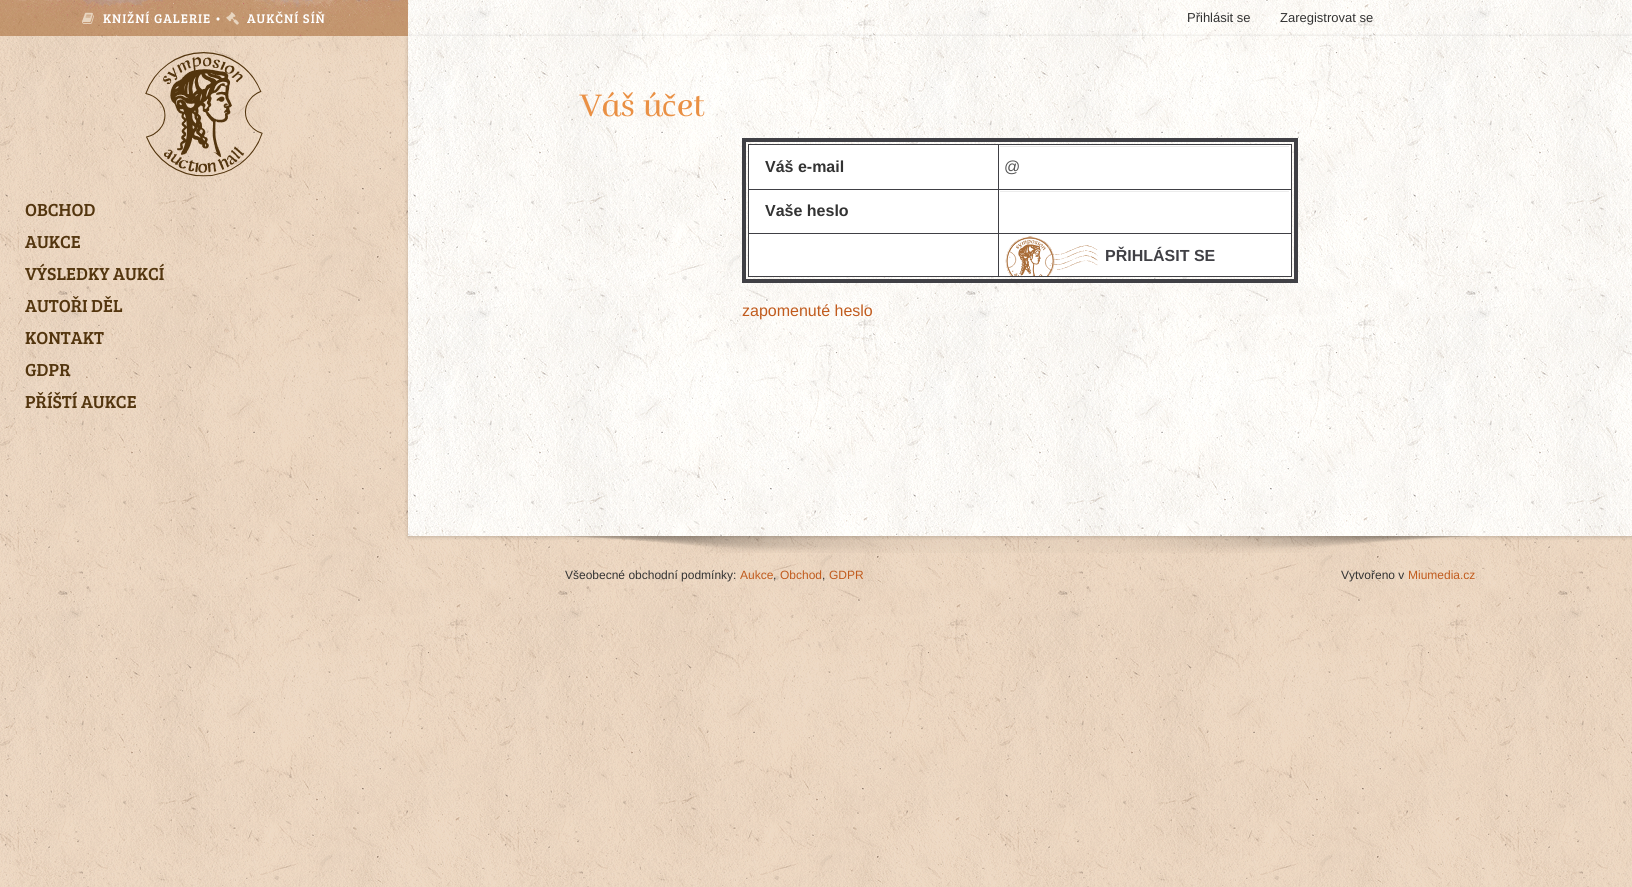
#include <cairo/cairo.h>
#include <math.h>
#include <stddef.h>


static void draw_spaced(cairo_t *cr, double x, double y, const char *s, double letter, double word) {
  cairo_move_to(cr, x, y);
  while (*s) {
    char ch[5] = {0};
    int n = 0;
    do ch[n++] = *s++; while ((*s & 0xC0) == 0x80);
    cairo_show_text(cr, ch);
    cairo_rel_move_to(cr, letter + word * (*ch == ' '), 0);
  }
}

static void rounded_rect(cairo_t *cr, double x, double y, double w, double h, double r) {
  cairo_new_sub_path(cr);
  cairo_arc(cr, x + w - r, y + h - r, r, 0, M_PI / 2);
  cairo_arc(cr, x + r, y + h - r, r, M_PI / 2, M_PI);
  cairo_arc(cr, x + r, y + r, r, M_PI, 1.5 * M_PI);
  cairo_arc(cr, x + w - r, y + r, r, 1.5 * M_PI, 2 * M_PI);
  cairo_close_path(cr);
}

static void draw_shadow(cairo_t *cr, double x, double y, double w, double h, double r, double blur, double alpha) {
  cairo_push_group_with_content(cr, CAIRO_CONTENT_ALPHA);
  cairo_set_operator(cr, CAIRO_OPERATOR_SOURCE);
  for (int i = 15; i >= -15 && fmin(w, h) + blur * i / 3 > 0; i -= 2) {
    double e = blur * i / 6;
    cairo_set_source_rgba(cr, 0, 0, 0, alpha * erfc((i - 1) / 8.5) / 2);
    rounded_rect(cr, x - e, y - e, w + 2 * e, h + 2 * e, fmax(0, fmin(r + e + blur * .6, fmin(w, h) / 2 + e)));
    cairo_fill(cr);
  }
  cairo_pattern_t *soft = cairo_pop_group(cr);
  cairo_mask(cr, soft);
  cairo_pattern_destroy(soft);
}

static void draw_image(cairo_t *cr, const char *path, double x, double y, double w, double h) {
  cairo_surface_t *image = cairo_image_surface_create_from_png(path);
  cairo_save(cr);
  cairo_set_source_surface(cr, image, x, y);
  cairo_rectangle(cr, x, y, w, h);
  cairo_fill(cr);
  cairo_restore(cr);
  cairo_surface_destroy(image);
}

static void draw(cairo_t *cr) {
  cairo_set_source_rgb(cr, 1, 1, 1);
  cairo_paint(cr);
  draw_image(cr, "images/1.png", 0, 0, 1632, 887);
  cairo_set_source_rgba(cr, 169 / 255.0, 108 / 255.0, 55 / 255.0, 0.6);
  cairo_rectangle(cr, 0, 0, 408, 36);
  cairo_fill(cr);
  draw_image(cr, "images/2.png", 0, 0, 408, 36);
  draw_image(cr, "images/3.png", 82, 12, 12, 12);
  draw_image(cr, "images/4.png", 226, 12, 13, 13);
  draw_image(cr, "images/5.png", 145, 52, 118, 125);
  draw_image(cr, "images/6.png", 408, 0, 1224, 536);
  cairo_save(cr);
  cairo_set_fill_rule(cr, CAIRO_FILL_RULE_EVEN_ODD);
  cairo_new_path(cr);
  cairo_move_to(cr, 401, 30);
  cairo_line_to(cr, 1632, 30);
  cairo_line_to(cr, 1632, 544);
  cairo_line_to(cr, 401, 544);
  cairo_close_path(cr);
  cairo_move_to(cr, 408, 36);
  cairo_line_to(cr, 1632, 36);
  cairo_line_to(cr, 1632, 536);
  cairo_line_to(cr, 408, 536);
  cairo_close_path(cr);
  cairo_clip(cr);
  cairo_set_source_rgb(cr, 0, 0, 0);
  draw_shadow(cr, 408, 37, 1224, 500, 0, 2, 0.2);
  cairo_restore(cr);
  cairo_rectangle(cr, 744, 140, 552, 141);
  cairo_set_source_rgb(cr, 64 / 255.0, 64 / 255.0, 69 / 255.0);
  cairo_set_line_width(cr, 4);
  cairo_stroke(cr);
  cairo_set_source_rgb(cr, 1, 1, 1);
  cairo_rectangle(cr, 749, 145, 542, 131);
  cairo_fill(cr);
  cairo_set_source_rgb(cr, 64 / 255.0, 64 / 255.0, 69 / 255.0);
  cairo_rectangle(cr, 748, 144, 544, 1);
  cairo_fill(cr);
  cairo_rectangle(cr, 1291, 144, 1, 133);
  cairo_fill(cr);
  cairo_rectangle(cr, 748, 276, 544, 1);
  cairo_fill(cr);
  cairo_rectangle(cr, 748, 144, 1, 133);
  cairo_fill(cr);
  cairo_rectangle(cr, 748, 189, 544, 1);
  cairo_fill(cr);
  cairo_set_source_rgb(cr, 236 / 255.0, 236 / 255.0, 236 / 255.0);
  cairo_rectangle(cr, 1000, 146, 289, 1);
  cairo_fill(cr);
  cairo_set_source_rgb(cr, 64 / 255.0, 64 / 255.0, 69 / 255.0);
  cairo_rectangle(cr, 748, 233, 544, 1);
  cairo_fill(cr);
  cairo_set_source_rgb(cr, 236 / 255.0, 236 / 255.0, 236 / 255.0);
  cairo_rectangle(cr, 1000, 191, 289, 1);
  cairo_fill(cr);
  cairo_set_source_rgb(cr, 64 / 255.0, 64 / 255.0, 69 / 255.0);
  cairo_rectangle(cr, 998, 144, 1, 133);
  cairo_fill(cr);
  draw_image(cr, "images/7.png", 1005, 236, 93, 40);
  draw_image(cr, "images/8.png", 566, 536, 907, 17);
  cairo_select_font_face(cr, "Bree Serif", CAIRO_FONT_SLANT_NORMAL, CAIRO_FONT_WEIGHT_NORMAL);
  cairo_set_font_size(cr, 13);
  cairo_set_source_rgb(cr, 1, 1, 1);
  draw_spaced(cr, 103, 23, "KNIŽNÍ GALERIE •", 1, 0);
  draw_spaced(cr, 247, 23, "AUKČNÍ SÍŇ", 1, 0);
  cairo_set_font_size(cr, 18);
  cairo_set_source_rgb(cr, 83 / 255.0, 53 / 255.0, 14 / 255.0);
  cairo_move_to(cr, 25, 216);
  cairo_show_text(cr, "OBCHOD");
  cairo_move_to(cr, 25, 248);
  cairo_show_text(cr, "AUKCE");
  cairo_move_to(cr, 25, 280);
  cairo_show_text(cr, "VÝSLEDKY AUKCÍ");
  cairo_move_to(cr, 25, 312);
  cairo_show_text(cr, "AUTOŘI DĚL");
  cairo_move_to(cr, 25, 344);
  cairo_show_text(cr, "KONTAKT");
  cairo_move_to(cr, 25, 376);
  cairo_show_text(cr, "GDPR");
  cairo_move_to(cr, 25, 408);
  cairo_show_text(cr, "PŘÍŠTÍ AUKCE");
  cairo_select_font_face(cr, "Liberation Sans", CAIRO_FONT_SLANT_NORMAL, CAIRO_FONT_WEIGHT_NORMAL);
  cairo_set_font_size(cr, 13);
  cairo_set_source_rgb(cr, 51 / 255.0, 51 / 255.0, 51 / 255.0);
  cairo_move_to(cr, 1187, 22);
  cairo_show_text(cr, "Přihlásit se");
  cairo_move_to(cr, 1280, 22);
  cairo_show_text(cr, "Zaregistrovat se");
  cairo_select_font_face(cr, "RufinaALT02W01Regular", CAIRO_FONT_SLANT_NORMAL, CAIRO_FONT_WEIGHT_NORMAL);
  cairo_set_font_size(cr, 32);
  cairo_set_source_rgb(cr, 234 / 255.0, 144 / 255.0, 68 / 255.0);
  cairo_move_to(cr, 580, 116);
  cairo_show_text(cr, "Váš ú");
  cairo_select_font_face(cr, "Liberation Serif", CAIRO_FONT_SLANT_NORMAL, CAIRO_FONT_WEIGHT_NORMAL);
  cairo_move_to(cr, 662, 116);
  cairo_show_text(cr, "č");
  cairo_select_font_face(cr, "RufinaALT02W01Regular", CAIRO_FONT_SLANT_NORMAL, CAIRO_FONT_WEIGHT_NORMAL);
  cairo_move_to(cr, 677, 116);
  cairo_show_text(cr, "et");
  cairo_select_font_face(cr, "Liberation Sans", CAIRO_FONT_SLANT_NORMAL, CAIRO_FONT_WEIGHT_BOLD);
  cairo_set_font_size(cr, 16);
  cairo_set_source_rgb(cr, 51 / 255.0, 51 / 255.0, 51 / 255.0);
  cairo_move_to(cr, 765, 172);
  cairo_show_text(cr, "Váš e-mail");
  cairo_select_font_face(cr, "Liberation Sans", CAIRO_FONT_SLANT_NORMAL, CAIRO_FONT_WEIGHT_NORMAL);
  cairo_set_source_rgb(cr, 85 / 255.0, 85 / 255.0, 85 / 255.0);
  cairo_move_to(cr, 1004, 172);
  cairo_show_text(cr, "@");
  cairo_select_font_face(cr, "Liberation Sans", CAIRO_FONT_SLANT_NORMAL, CAIRO_FONT_WEIGHT_BOLD);
  cairo_set_source_rgb(cr, 51 / 255.0, 51 / 255.0, 51 / 255.0);
  cairo_move_to(cr, 765, 216);
  cairo_show_text(cr, "Vaše heslo");
  cairo_set_source_rgb(cr, 64 / 255.0, 64 / 255.0, 69 / 255.0);
  cairo_move_to(cr, 1105, 261);
  cairo_show_text(cr, "PŘIHLÁSIT SE");
  cairo_select_font_face(cr, "Liberation Sans", CAIRO_FONT_SLANT_NORMAL, CAIRO_FONT_WEIGHT_NORMAL);
  cairo_set_source_rgb(cr, 193 / 255.0, 91 / 255.0, 29 / 255.0);
  cairo_move_to(cr, 742, 316);
  cairo_show_text(cr, "zapomenuté heslo");
  cairo_set_font_size(cr, 12);
  cairo_set_source_rgb(cr, 51 / 255.0, 51 / 255.0, 51 / 255.0);
  cairo_move_to(cr, 565, 579);
  cairo_show_text(cr, "Všeobecné obchodní podmínky:");
  cairo_set_source_rgb(cr, 193 / 255.0, 91 / 255.0, 29 / 255.0);
  cairo_move_to(cr, 740, 579);
  cairo_show_text(cr, "Aukce");
  cairo_set_source_rgb(cr, 51 / 255.0, 51 / 255.0, 51 / 255.0);
  cairo_move_to(cr, 773, 579);
  cairo_show_text(cr, ",");
  cairo_set_source_rgb(cr, 193 / 255.0, 91 / 255.0, 29 / 255.0);
  cairo_move_to(cr, 780, 579);
  cairo_show_text(cr, "Obchod");
  cairo_set_source_rgb(cr, 51 / 255.0, 51 / 255.0, 51 / 255.0);
  cairo_move_to(cr, 822, 579);
  cairo_show_text(cr, ",");
  cairo_set_source_rgb(cr, 193 / 255.0, 91 / 255.0, 29 / 255.0);
  cairo_move_to(cr, 829, 579);
  cairo_show_text(cr, "GDPR");
  cairo_set_source_rgb(cr, 51 / 255.0, 51 / 255.0, 51 / 255.0);
  cairo_move_to(cr, 1341, 579);
  cairo_show_text(cr, "Vytvořeno v");
  cairo_set_source_rgb(cr, 193 / 255.0, 91 / 255.0, 29 / 255.0);
  cairo_move_to(cr, 1408, 579);
  cairo_show_text(cr, "Miumedia.cz");
}

int main(void) {
  cairo_surface_t *surface = cairo_image_surface_create(CAIRO_FORMAT_RGB24, 1632, 887);
  cairo_t *cr = cairo_create(surface);
  cairo_font_options_t *options = cairo_font_options_create();
  cairo_font_options_set_hint_metrics(options, CAIRO_HINT_METRICS_OFF);
  cairo_font_options_set_hint_style(options, CAIRO_HINT_STYLE_NONE);
  cairo_set_font_options(cr, options);
  cairo_set_miter_limit(cr, 4);
  draw(cr);
  cairo_surface_write_to_png(surface, "out.png");
  cairo_font_options_destroy(options);
  cairo_destroy(cr);
  cairo_surface_destroy(surface);
  return 0;
}
